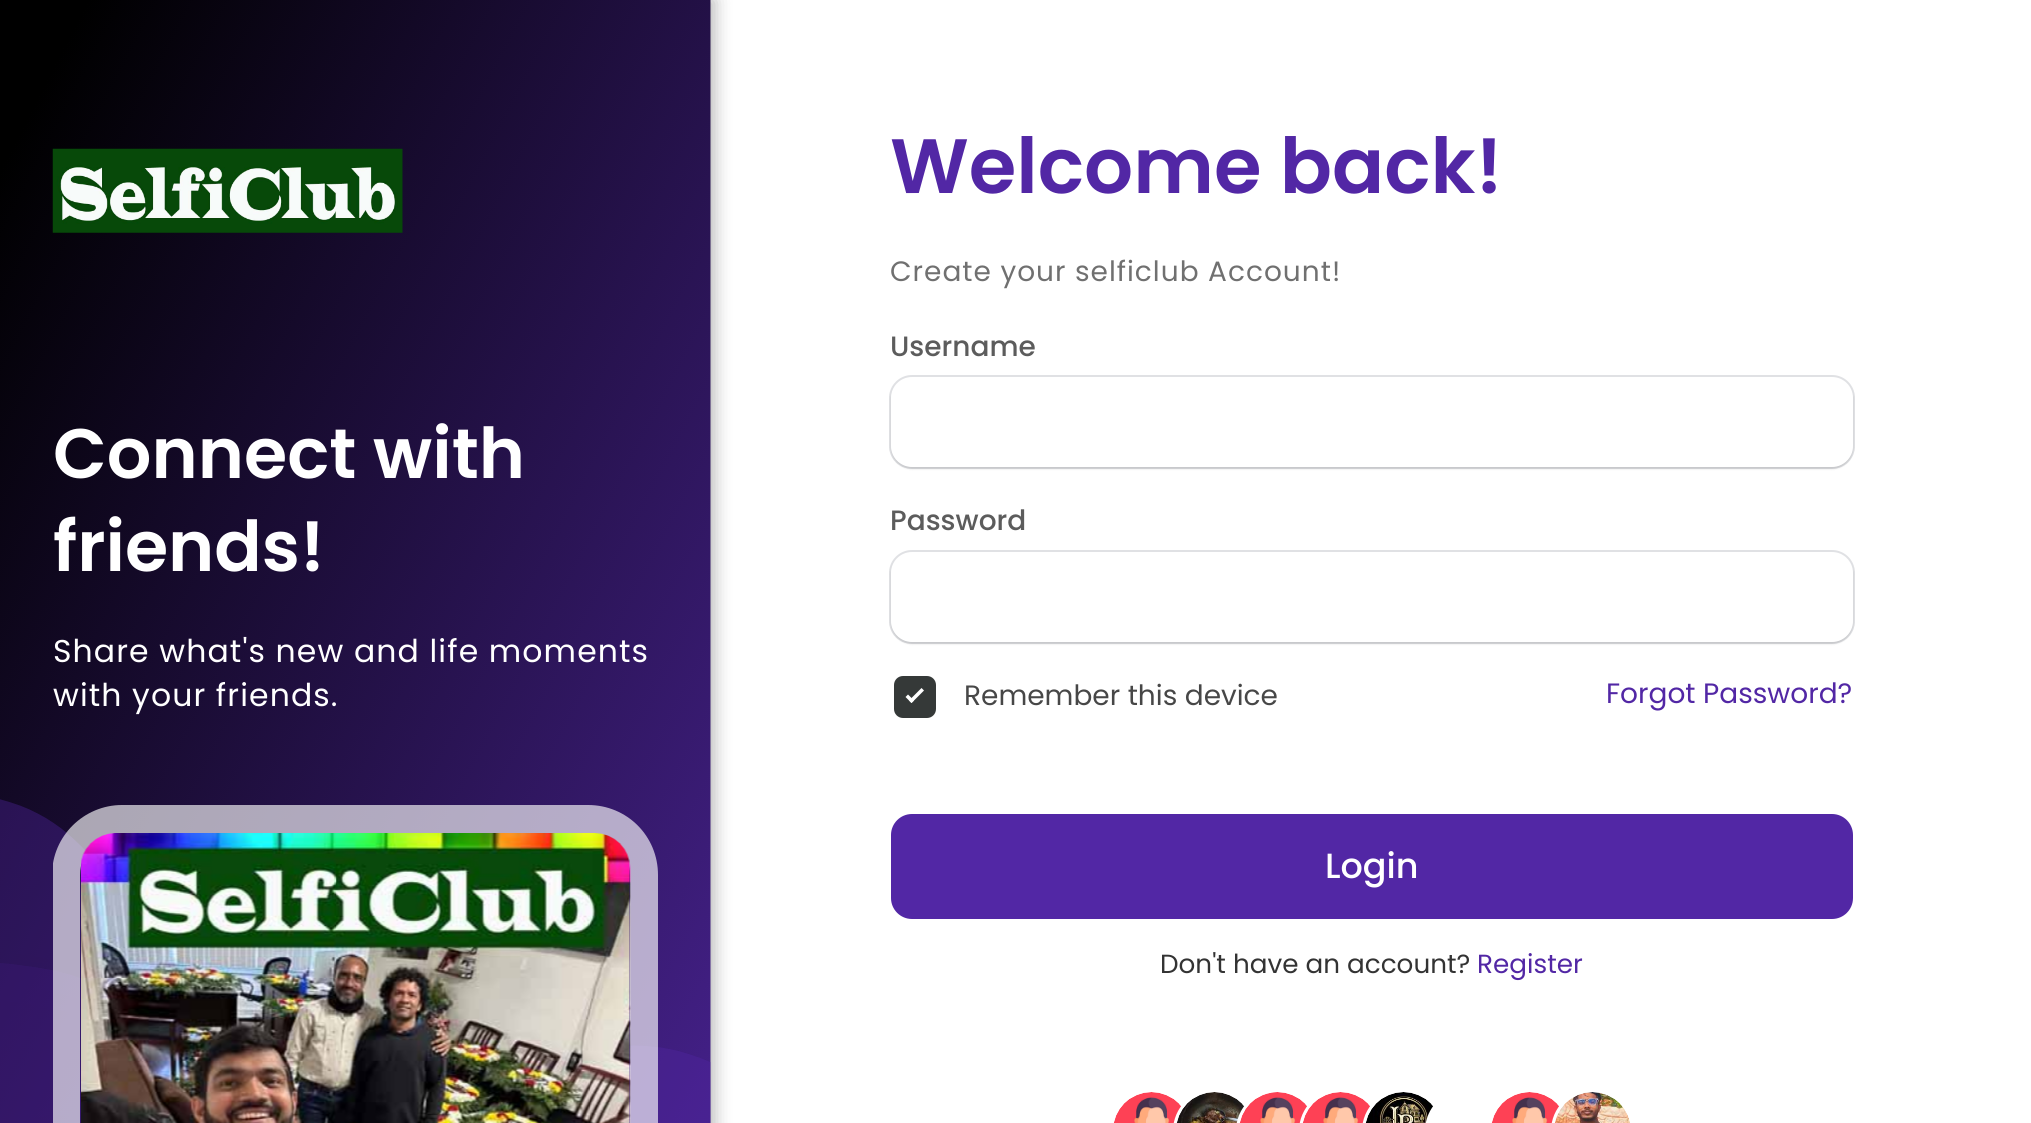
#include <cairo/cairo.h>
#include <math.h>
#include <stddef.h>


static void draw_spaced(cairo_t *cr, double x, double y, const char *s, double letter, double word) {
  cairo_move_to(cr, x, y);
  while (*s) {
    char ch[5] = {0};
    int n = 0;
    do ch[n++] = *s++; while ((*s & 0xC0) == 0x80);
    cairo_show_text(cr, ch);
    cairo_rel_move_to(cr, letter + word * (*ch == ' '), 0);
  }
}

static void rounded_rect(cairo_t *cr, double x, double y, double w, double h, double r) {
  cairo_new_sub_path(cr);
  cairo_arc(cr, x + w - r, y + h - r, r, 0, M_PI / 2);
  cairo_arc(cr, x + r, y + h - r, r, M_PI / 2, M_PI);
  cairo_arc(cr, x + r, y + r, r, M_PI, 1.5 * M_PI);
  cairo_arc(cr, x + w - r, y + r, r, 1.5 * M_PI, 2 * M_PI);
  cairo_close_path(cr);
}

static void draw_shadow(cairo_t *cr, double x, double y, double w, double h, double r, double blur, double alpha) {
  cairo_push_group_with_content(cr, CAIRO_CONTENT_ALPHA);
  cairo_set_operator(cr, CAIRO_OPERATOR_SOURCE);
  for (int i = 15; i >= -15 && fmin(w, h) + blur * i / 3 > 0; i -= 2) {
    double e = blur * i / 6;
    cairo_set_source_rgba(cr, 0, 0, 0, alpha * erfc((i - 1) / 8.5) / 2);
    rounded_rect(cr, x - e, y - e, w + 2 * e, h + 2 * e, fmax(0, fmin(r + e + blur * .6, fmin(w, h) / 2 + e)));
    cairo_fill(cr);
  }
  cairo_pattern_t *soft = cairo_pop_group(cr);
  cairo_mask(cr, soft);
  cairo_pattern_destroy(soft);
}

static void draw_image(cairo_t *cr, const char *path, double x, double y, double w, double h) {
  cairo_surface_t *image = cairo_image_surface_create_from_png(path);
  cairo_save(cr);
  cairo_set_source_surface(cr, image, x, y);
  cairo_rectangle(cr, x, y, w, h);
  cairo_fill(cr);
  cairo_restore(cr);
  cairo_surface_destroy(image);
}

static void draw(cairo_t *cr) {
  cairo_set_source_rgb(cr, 1, 1, 1);
  cairo_paint(cr);
  cairo_set_source_rgb(cr, 0, 0, 0);
  draw_shadow(cr, 4, 0, 710, 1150, 0, 9, 0.3);
  draw_image(cr, "images/1.png", 0, 0, 711, 1123);
  draw_image(cr, "images/2.png", 52, 148, 351, 85);
  cairo_save(cr);
  cairo_rectangle(cr, 53, 0, 605, 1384);
  cairo_clip(cr);
  cairo_set_source_rgba(cr, 1, 1, 1, 0.64);
  cairo_set_fill_rule(cr, CAIRO_FILL_RULE_EVEN_ODD);
  cairo_new_path(cr);
  cairo_move_to(cr, 122, 805);
  cairo_line_to(cr, 588, 805);
  cairo_curve_to(cr, 627, 805, 658, 836, 658, 875);
  cairo_line_to(cr, 658, 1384);
  cairo_line_to(cr, 52, 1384);
  cairo_line_to(cr, 52, 875);
  cairo_curve_to(cr, 52, 836, 84, 805, 122, 805);
  cairo_close_path(cr);
  cairo_move_to(cr, 122, 833);
  cairo_line_to(cr, 588, 833);
  cairo_curve_to(cr, 611, 833, 630, 852, 630, 875);
  cairo_line_to(cr, 630, 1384);
  cairo_line_to(cr, 80, 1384);
  cairo_line_to(cr, 80, 875);
  cairo_curve_to(cr, 80, 852, 99, 833, 122, 833);
  cairo_close_path(cr);
  cairo_fill(cr);
  cairo_restore(cr);
  draw_image(cr, "images/3.png", 81, 833, 550, 290);
  cairo_save(cr);
  cairo_set_fill_rule(cr, CAIRO_FILL_RULE_EVEN_ODD);
  cairo_new_path(cr);
  cairo_move_to(cr, 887, 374);
  cairo_line_to(cr, 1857, 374);
  cairo_line_to(cr, 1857, 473);
  cairo_line_to(cr, 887, 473);
  cairo_close_path(cr);
  cairo_move_to(cr, 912, 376);
  cairo_line_to(cr, 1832, 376);
  cairo_curve_to(cr, 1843.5, 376, 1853, 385.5, 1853, 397);
  cairo_line_to(cr, 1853, 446);
  cairo_curve_to(cr, 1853, 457.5, 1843.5, 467, 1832, 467);
  cairo_line_to(cr, 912, 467);
  cairo_curve_to(cr, 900.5, 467, 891, 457.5, 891, 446);
  cairo_line_to(cr, 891, 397);
  cairo_curve_to(cr, 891, 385.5, 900.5, 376, 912, 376);
  cairo_close_path(cr);
  cairo_clip(cr);
  draw_shadow(cr, 891, 378, 962, 91, 21, 1, 0.12);
  cairo_restore(cr);
  rounded_rect(cr, 890, 376, 964, 92, 22);
  cairo_set_source_rgba(cr, 60 / 255.0, 66 / 255.0, 87 / 255.0, 0.16);
  cairo_stroke(cr);
  cairo_save(cr);
  cairo_set_fill_rule(cr, CAIRO_FILL_RULE_EVEN_ODD);
  cairo_new_path(cr);
  cairo_move_to(cr, 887, 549);
  cairo_line_to(cr, 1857, 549);
  cairo_line_to(cr, 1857, 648);
  cairo_line_to(cr, 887, 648);
  cairo_close_path(cr);
  cairo_move_to(cr, 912, 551);
  cairo_line_to(cr, 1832, 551);
  cairo_curve_to(cr, 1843.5, 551, 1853, 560.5, 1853, 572);
  cairo_line_to(cr, 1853, 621);
  cairo_curve_to(cr, 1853, 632.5, 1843.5, 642, 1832, 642);
  cairo_line_to(cr, 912, 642);
  cairo_curve_to(cr, 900.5, 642, 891, 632.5, 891, 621);
  cairo_line_to(cr, 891, 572);
  cairo_curve_to(cr, 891, 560.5, 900.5, 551, 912, 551);
  cairo_close_path(cr);
  cairo_clip(cr);
  cairo_set_source_rgb(cr, 0, 0, 0);
  draw_shadow(cr, 891, 553, 962, 91, 21, 1, 0.12);
  cairo_restore(cr);
  rounded_rect(cr, 890, 551, 964, 92, 22);
  cairo_stroke(cr);
  cairo_set_source_rgb(cr, 53 / 255.0, 57 / 255.0, 56 / 255.0);
  rounded_rect(cr, 896, 678, 38, 38, 7);
  cairo_fill_preserve(cr);
  cairo_set_line_width(cr, 4);
  cairo_stroke(cr);
  cairo_set_source_rgb(cr, 1, 1, 1);
  cairo_new_path(cr);
  cairo_move_to(cr, 909, 700.5);
  cairo_line_to(cr, 921.5, 688);
  cairo_line_to(cr, 924, 690.5);
  cairo_line_to(cr, 911.5, 703);
  cairo_close_path(cr);
  cairo_fill(cr);
  cairo_new_path(cr);
  cairo_move_to(cr, 905.5, 697);
  cairo_line_to(cr, 908, 694.5);
  cairo_line_to(cr, 914, 700.5);
  cairo_line_to(cr, 911.5, 703);
  cairo_close_path(cr);
  cairo_fill(cr);
  cairo_set_source_rgb(cr, 82 / 255.0, 39 / 255.0, 165 / 255.0);
  rounded_rect(cr, 891, 814, 962, 105, 21);
  cairo_fill(cr);
  draw_image(cr, "images/4.png", 1113, 1092, 69, 31);
  rounded_rect(cr, 1175, 1091, 80, 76, 40);
  cairo_set_source_rgb(cr, 1, 1, 1);
  cairo_stroke(cr);
  draw_image(cr, "images/5.png", 1176, 1092, 69, 31);
  rounded_rect(cr, 1238, 1091, 80, 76, 40);
  cairo_stroke(cr);
  draw_image(cr, "images/6.png", 1239, 1092, 69, 31);
  rounded_rect(cr, 1301, 1091, 80, 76, 40);
  cairo_stroke(cr);
  draw_image(cr, "images/7.png", 1302, 1092, 69, 31);
  rounded_rect(cr, 1364, 1091, 80, 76, 40);
  cairo_stroke(cr);
  draw_image(cr, "images/8.png", 1365, 1092, 69, 31);
  rounded_rect(cr, 1427, 1091, 80, 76, 40);
  cairo_stroke(cr);
  draw_image(cr, "images/9.png", 1429, 1109, 12, 14);
  draw_image(cr, "images/10.png", 1491, 1092, 69, 31);
  rounded_rect(cr, 1553, 1091, 80, 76, 40);
  cairo_stroke(cr);
  draw_image(cr, "images/11.png", 1555, 1092, 75, 31);
  cairo_select_font_face(cr, "Poppins SemiBold", CAIRO_FONT_SLANT_NORMAL, CAIRO_FONT_WEIGHT_NORMAL);
  cairo_set_font_size(cr, 70);
  cairo_move_to(cr, 53, 478);
  cairo_show_text(cr, "Connect with");
  cairo_move_to(cr, 53, 571);
  cairo_show_text(cr, "friends!");
  cairo_select_font_face(cr, "Poppins", CAIRO_FONT_SLANT_NORMAL, CAIRO_FONT_WEIGHT_NORMAL);
  cairo_set_font_size(cr, 31.5);
  draw_spaced(cr, 53, 662, "Share what's new and life moments", 1.1, 0);
  draw_spaced(cr, 53, 706, "with your friends.", 1.1, 0);
  cairo_select_font_face(cr, "Poppins SemiBold", CAIRO_FONT_SLANT_NORMAL, CAIRO_FONT_WEIGHT_NORMAL);
  cairo_set_font_size(cr, 77);
  cairo_set_source_rgb(cr, 82 / 255.0, 39 / 255.0, 165 / 255.0);
  cairo_move_to(cr, 890, 193);
  cairo_show_text(cr, "Welcome back!");
  cairo_select_font_face(cr, "Poppins", CAIRO_FONT_SLANT_NORMAL, CAIRO_FONT_WEIGHT_NORMAL);
  cairo_set_font_size(cr, 28);
  cairo_set_source_rgb(cr, 112 / 255.0, 112 / 255.0, 112 / 255.0);
  draw_spaced(cr, 890, 281, "Create your selficlub Account!", 1, 0);
  cairo_select_font_face(cr, "Poppins Medium", CAIRO_FONT_SLANT_NORMAL, CAIRO_FONT_WEIGHT_NORMAL);
  cairo_set_source_rgb(cr, 92 / 255.0, 92 / 255.0, 92 / 255.0);
  cairo_move_to(cr, 890, 356);
  cairo_show_text(cr, "Username");
  cairo_move_to(cr, 890, 530);
  cairo_show_text(cr, "Password");
  cairo_select_font_face(cr, "Poppins", CAIRO_FONT_SLANT_NORMAL, CAIRO_FONT_WEIGHT_NORMAL);
  cairo_set_source_rgb(cr, 71 / 255.0, 71 / 255.0, 71 / 255.0);
  cairo_move_to(cr, 964, 705);
  cairo_show_text(cr, "Remember this device");
  cairo_set_source_rgb(cr, 82 / 255.0, 39 / 255.0, 165 / 255.0);
  cairo_move_to(cr, 1606, 703);
  cairo_show_text(cr, "Forgot Password?");
  cairo_select_font_face(cr, "Poppins Medium", CAIRO_FONT_SLANT_NORMAL, CAIRO_FONT_WEIGHT_NORMAL);
  cairo_set_font_size(cr, 35);
  cairo_set_source_rgb(cr, 1, 1, 1);
  cairo_move_to(cr, 1325, 878);
  cairo_show_text(cr, "Login");
  cairo_select_font_face(cr, "Poppins", CAIRO_FONT_SLANT_NORMAL, CAIRO_FONT_WEIGHT_NORMAL);
  cairo_set_font_size(cr, 26.25);
  cairo_set_source_rgb(cr, 51 / 255.0, 51 / 255.0, 51 / 255.0);
  cairo_move_to(cr, 1160, 973);
  cairo_show_text(cr, "Don't have an account?");
  cairo_set_source_rgb(cr, 82 / 255.0, 39 / 255.0, 165 / 255.0);
  cairo_move_to(cr, 1477, 973);
  cairo_show_text(cr, "Register");
}

int main(void) {
  cairo_surface_t *surface = cairo_image_surface_create(CAIRO_FORMAT_RGB24, 2031, 1123);
  cairo_t *cr = cairo_create(surface);
  cairo_font_options_t *options = cairo_font_options_create();
  cairo_font_options_set_hint_metrics(options, CAIRO_HINT_METRICS_OFF);
  cairo_font_options_set_hint_style(options, CAIRO_HINT_STYLE_NONE);
  cairo_set_font_options(cr, options);
  cairo_set_miter_limit(cr, 4);
  draw(cr);
  cairo_surface_write_to_png(surface, "out.png");
  cairo_font_options_destroy(options);
  cairo_destroy(cr);
  cairo_surface_destroy(surface);
  return 0;
}
